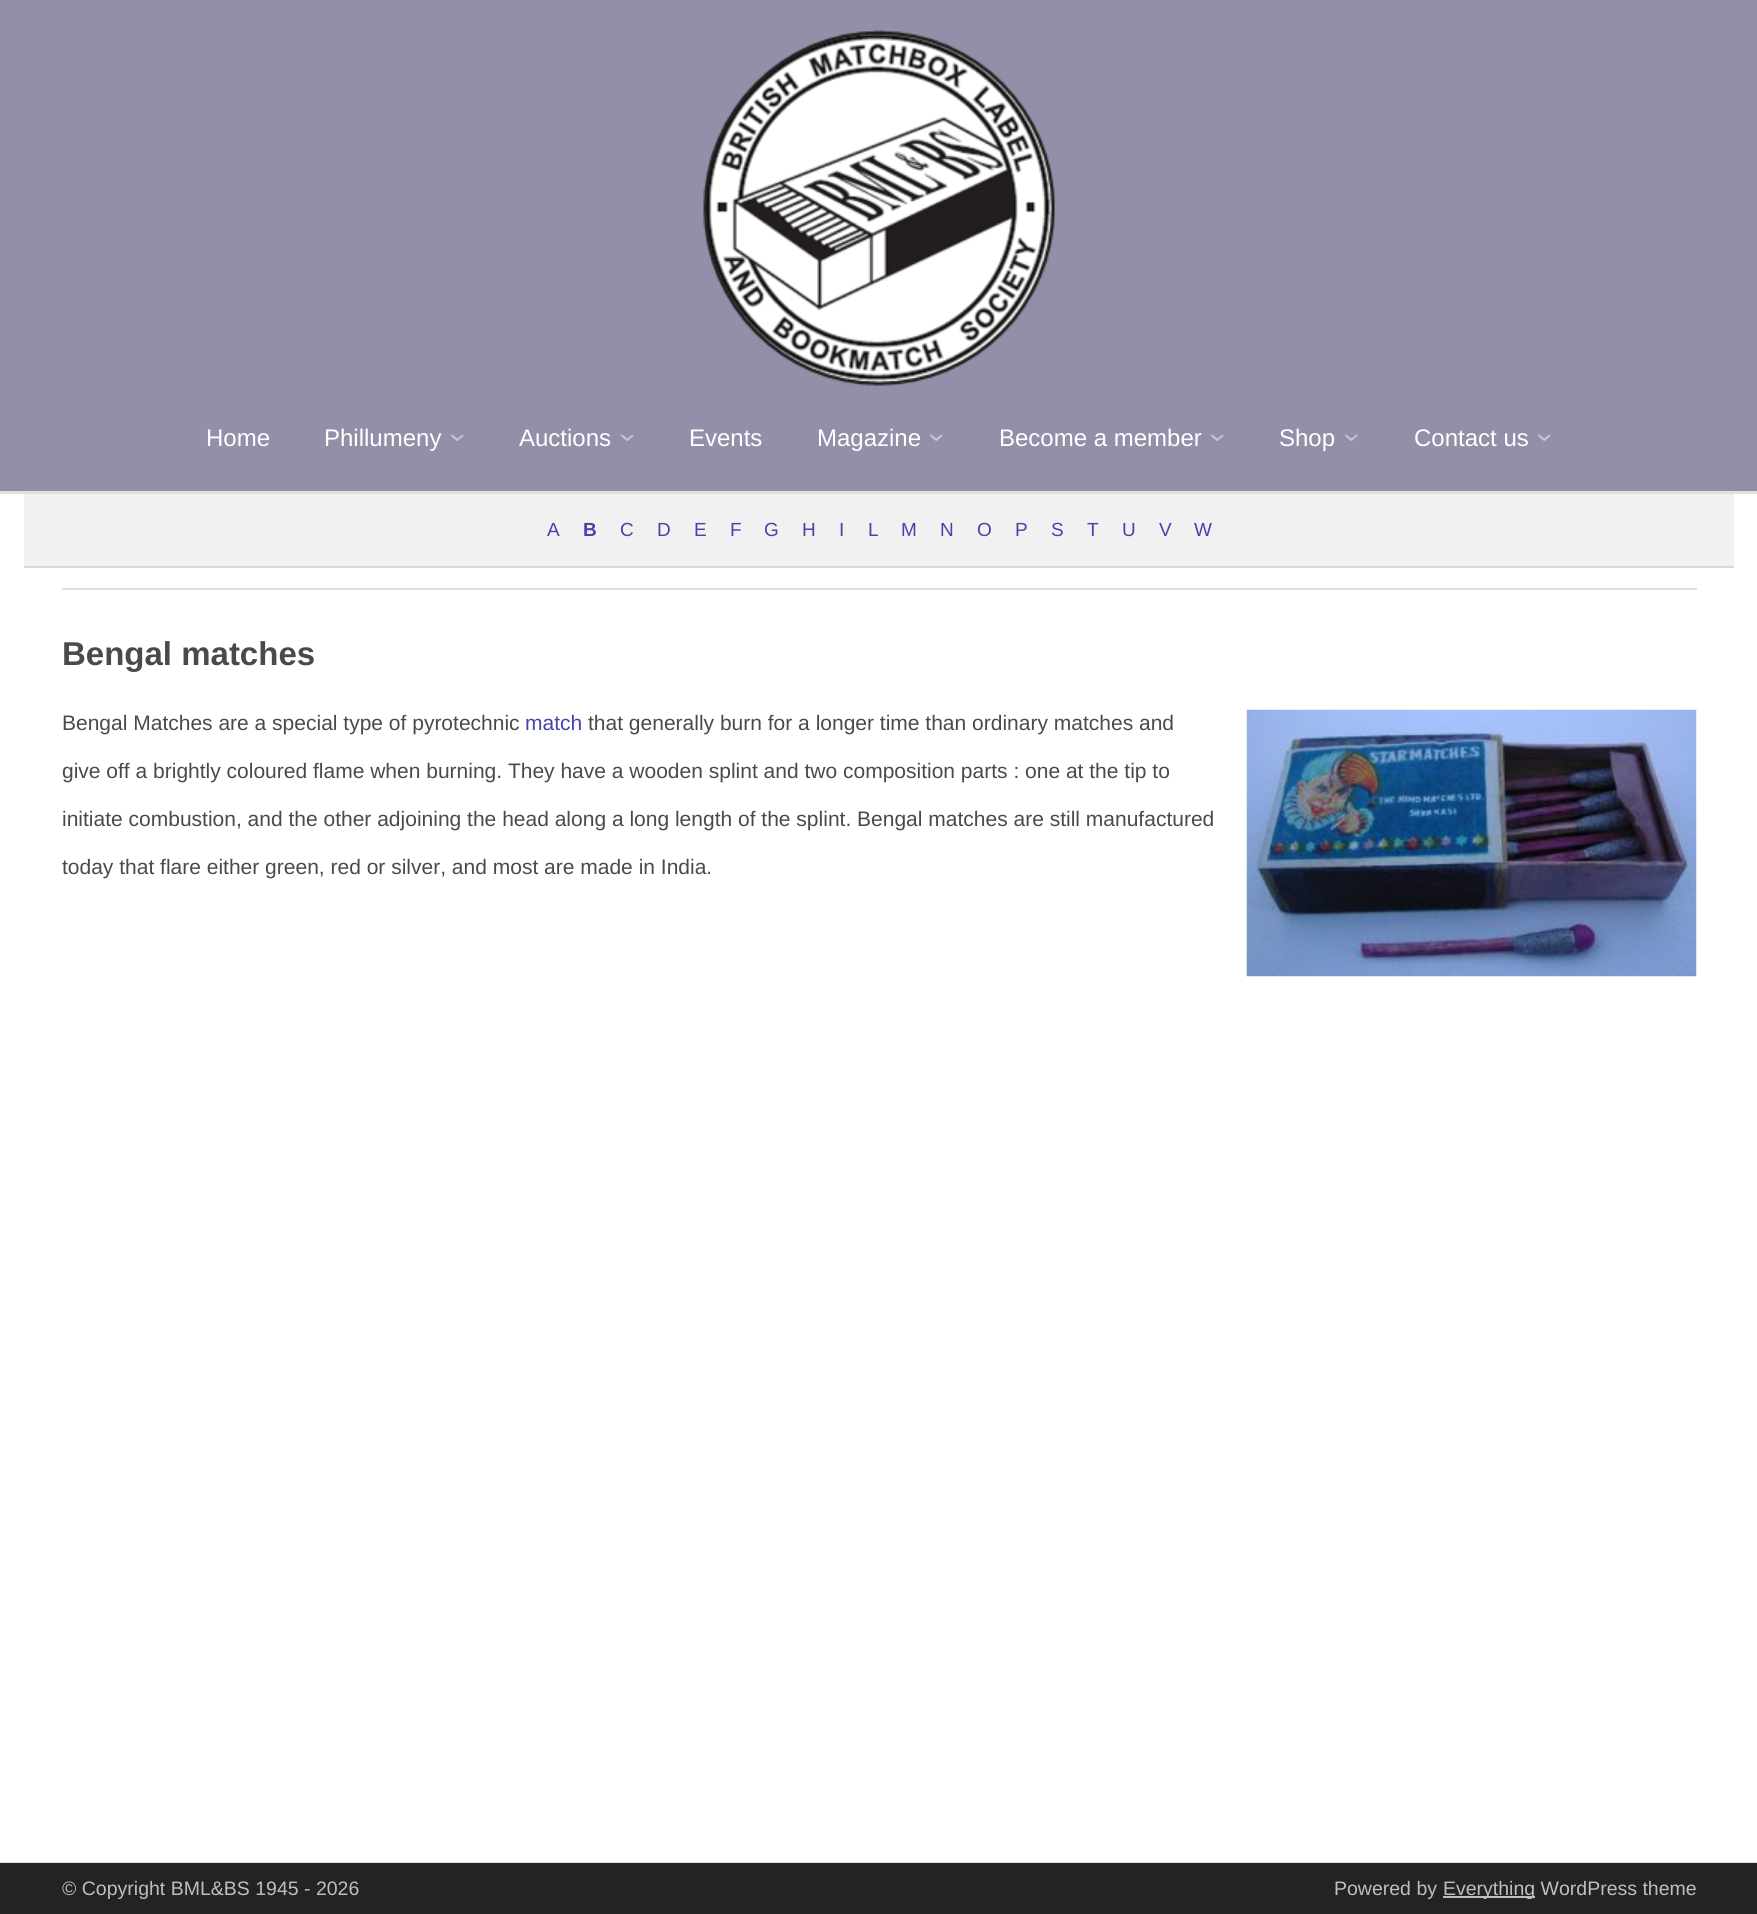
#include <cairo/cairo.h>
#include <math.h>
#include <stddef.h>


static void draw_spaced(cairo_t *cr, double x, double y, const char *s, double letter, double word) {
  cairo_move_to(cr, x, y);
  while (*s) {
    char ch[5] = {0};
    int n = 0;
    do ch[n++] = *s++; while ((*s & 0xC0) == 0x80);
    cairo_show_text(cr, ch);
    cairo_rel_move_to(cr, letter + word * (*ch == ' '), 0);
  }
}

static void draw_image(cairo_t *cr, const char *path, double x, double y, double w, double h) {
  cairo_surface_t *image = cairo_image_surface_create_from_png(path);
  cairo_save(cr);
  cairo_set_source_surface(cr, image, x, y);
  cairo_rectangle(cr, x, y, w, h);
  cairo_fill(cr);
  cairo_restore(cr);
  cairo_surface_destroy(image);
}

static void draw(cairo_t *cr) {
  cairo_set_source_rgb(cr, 1, 1, 1);
  cairo_paint(cr);
  cairo_set_source_rgb(cr, 146 / 255.0, 143 / 255.0, 169 / 255.0);
  cairo_rectangle(cr, 0, 0, 1757, 491);
  cairo_fill(cr);
  draw_image(cr, "images/1.png", 703, 30, 352, 356);
  cairo_set_source_rgb(cr, 224 / 255.0, 224 / 255.0, 224 / 255.0);
  cairo_rectangle(cr, 0, 491, 1757, 3);
  cairo_fill(cr);
  cairo_rectangle(cr, 0, 1862, 1757, 1);
  cairo_fill(cr);
  cairo_set_source_rgb(cr, 241 / 255.0, 241 / 255.0, 241 / 255.0);
  cairo_rectangle(cr, 24, 494, 1710, 72);
  cairo_fill(cr);
  cairo_set_source_rgb(cr, 217 / 255.0, 217 / 255.0, 217 / 255.0);
  cairo_rectangle(cr, 24, 566, 1710, 2);
  cairo_fill(cr);
  cairo_set_source_rgb(cr, 223 / 255.0, 223 / 255.0, 223 / 255.0);
  cairo_rectangle(cr, 62, 588, 1635, 2);
  cairo_fill(cr);
  draw_image(cr, "images/2.png", 1246, 709, 451, 268);
  cairo_set_source_rgb(cr, 35 / 255.0, 35 / 255.0, 35 / 255.0);
  cairo_rectangle(cr, 0, 1863, 1757, 51);
  cairo_fill(cr);
  cairo_set_source_rgb(cr, 190 / 255.0, 190 / 255.0, 190 / 255.0);
  cairo_rectangle(cr, 1443, 1896, 92, 2);
  cairo_fill(cr);
  cairo_select_font_face(cr, "Liberation Sans", CAIRO_FONT_SLANT_NORMAL, CAIRO_FONT_WEIGHT_NORMAL);
  cairo_set_font_size(cr, 24);
  cairo_set_source_rgb(cr, 1, 1, 1);
  cairo_move_to(cr, 206, 446);
  cairo_show_text(cr, "Home");
  cairo_move_to(cr, 324, 446);
  cairo_show_text(cr, "Phillumeny");
  cairo_select_font_face(cr, "Open Sans", CAIRO_FONT_SLANT_NORMAL, CAIRO_FONT_WEIGHT_NORMAL);
  cairo_set_font_size(cr, 31);
  cairo_set_source_rgb(cr, 196 / 255.0, 195 / 255.0, 209 / 255.0);
  cairo_save(cr);
  cairo_translate(cr, 449, 433);
  cairo_rotate(cr, 90 * M_PI / 180);
  cairo_move_to(cr, 0, 0);
  cairo_show_text(cr, "›");
  cairo_restore(cr);
  cairo_select_font_face(cr, "Liberation Sans", CAIRO_FONT_SLANT_NORMAL, CAIRO_FONT_WEIGHT_NORMAL);
  cairo_set_font_size(cr, 24);
  cairo_set_source_rgb(cr, 1, 1, 1);
  cairo_move_to(cr, 519, 446);
  cairo_show_text(cr, "Auctions");
  cairo_select_font_face(cr, "Open Sans", CAIRO_FONT_SLANT_NORMAL, CAIRO_FONT_WEIGHT_NORMAL);
  cairo_set_font_size(cr, 31);
  cairo_set_source_rgb(cr, 196 / 255.0, 195 / 255.0, 209 / 255.0);
  cairo_save(cr);
  cairo_translate(cr, 619, 433);
  cairo_rotate(cr, 90 * M_PI / 180);
  cairo_move_to(cr, 0, 0);
  cairo_show_text(cr, "›");
  cairo_restore(cr);
  cairo_select_font_face(cr, "Liberation Sans", CAIRO_FONT_SLANT_NORMAL, CAIRO_FONT_WEIGHT_NORMAL);
  cairo_set_font_size(cr, 24);
  cairo_set_source_rgb(cr, 1, 1, 1);
  cairo_move_to(cr, 689, 446);
  cairo_show_text(cr, "Events");
  cairo_move_to(cr, 817, 446);
  cairo_show_text(cr, "Magazine");
  cairo_select_font_face(cr, "Open Sans", CAIRO_FONT_SLANT_NORMAL, CAIRO_FONT_WEIGHT_NORMAL);
  cairo_set_font_size(cr, 31);
  cairo_set_source_rgb(cr, 196 / 255.0, 195 / 255.0, 209 / 255.0);
  cairo_save(cr);
  cairo_translate(cr, 928, 433);
  cairo_rotate(cr, 90 * M_PI / 180);
  cairo_move_to(cr, 0, 0);
  cairo_show_text(cr, "›");
  cairo_restore(cr);
  cairo_select_font_face(cr, "Liberation Sans", CAIRO_FONT_SLANT_NORMAL, CAIRO_FONT_WEIGHT_NORMAL);
  cairo_set_font_size(cr, 24);
  cairo_set_source_rgb(cr, 1, 1, 1);
  cairo_move_to(cr, 999, 446);
  cairo_show_text(cr, "Become a member");
  cairo_select_font_face(cr, "Open Sans", CAIRO_FONT_SLANT_NORMAL, CAIRO_FONT_WEIGHT_NORMAL);
  cairo_set_font_size(cr, 31);
  cairo_set_source_rgb(cr, 196 / 255.0, 195 / 255.0, 209 / 255.0);
  cairo_save(cr);
  cairo_translate(cr, 1209, 433);
  cairo_rotate(cr, 90 * M_PI / 180);
  cairo_move_to(cr, 0, 0);
  cairo_show_text(cr, "›");
  cairo_restore(cr);
  cairo_select_font_face(cr, "Liberation Sans", CAIRO_FONT_SLANT_NORMAL, CAIRO_FONT_WEIGHT_NORMAL);
  cairo_set_font_size(cr, 24);
  cairo_set_source_rgb(cr, 1, 1, 1);
  cairo_move_to(cr, 1279, 446);
  cairo_show_text(cr, "Shop");
  cairo_select_font_face(cr, "Open Sans", CAIRO_FONT_SLANT_NORMAL, CAIRO_FONT_WEIGHT_NORMAL);
  cairo_set_font_size(cr, 31);
  cairo_set_source_rgb(cr, 196 / 255.0, 195 / 255.0, 209 / 255.0);
  cairo_save(cr);
  cairo_translate(cr, 1343, 433);
  cairo_rotate(cr, 90 * M_PI / 180);
  cairo_move_to(cr, 0, 0);
  cairo_show_text(cr, "›");
  cairo_restore(cr);
  cairo_select_font_face(cr, "Liberation Sans", CAIRO_FONT_SLANT_NORMAL, CAIRO_FONT_WEIGHT_NORMAL);
  cairo_set_font_size(cr, 24);
  cairo_set_source_rgb(cr, 1, 1, 1);
  cairo_move_to(cr, 1414, 446);
  cairo_show_text(cr, "Contact us");
  cairo_select_font_face(cr, "Open Sans", CAIRO_FONT_SLANT_NORMAL, CAIRO_FONT_WEIGHT_NORMAL);
  cairo_set_font_size(cr, 31);
  cairo_set_source_rgb(cr, 196 / 255.0, 195 / 255.0, 209 / 255.0);
  cairo_save(cr);
  cairo_translate(cr, 1536, 433);
  cairo_rotate(cr, 90 * M_PI / 180);
  cairo_move_to(cr, 0, 0);
  cairo_show_text(cr, "›");
  cairo_restore(cr);
  cairo_select_font_face(cr, "Liberation Sans", CAIRO_FONT_SLANT_NORMAL, CAIRO_FONT_WEIGHT_NORMAL);
  cairo_set_font_size(cr, 19);
  cairo_set_source_rgb(cr, 70 / 255.0, 68 / 255.0, 170 / 255.0);
  draw_spaced(cr, 547, 536, "A", -2, 0);
  cairo_select_font_face(cr, "Liberation Sans", CAIRO_FONT_SLANT_NORMAL, CAIRO_FONT_WEIGHT_BOLD);
  draw_spaced(cr, 583, 536, "B", -2, 0);
  cairo_select_font_face(cr, "Liberation Sans", CAIRO_FONT_SLANT_NORMAL, CAIRO_FONT_WEIGHT_NORMAL);
  draw_spaced(cr, 620, 536, "C", -2, 0);
  draw_spaced(cr, 657, 536, "D", -2, 0);
  draw_spaced(cr, 694, 536, "E", -2, 0);
  draw_spaced(cr, 730, 536, "F", -2, 0);
  draw_spaced(cr, 764, 536, "G", -2, 0);
  draw_spaced(cr, 802, 536, "H", -2, 0);
  draw_spaced(cr, 839, 536, "I", -2, 0);
  draw_spaced(cr, 868, 536, "L", -2, 0);
  draw_spaced(cr, 901, 536, "M", -2, 0);
  draw_spaced(cr, 940, 536, "N", -2, 0);
  draw_spaced(cr, 977, 536, "O", -2, 0);
  draw_spaced(cr, 1015, 536, "P", -2, 0);
  draw_spaced(cr, 1051, 536, "S", -2, 0);
  draw_spaced(cr, 1087, 536, "T", -2, 0);
  draw_spaced(cr, 1122, 536, "U", -2, 0);
  draw_spaced(cr, 1159, 536, "V", -2, 0);
  draw_spaced(cr, 1194, 536, "W", -2, 0);
  cairo_select_font_face(cr, "Liberation Sans", CAIRO_FONT_SLANT_NORMAL, CAIRO_FONT_WEIGHT_BOLD);
  cairo_set_font_size(cr, 33);
  cairo_set_source_rgb(cr, 74 / 255.0, 74 / 255.0, 74 / 255.0);
  cairo_move_to(cr, 62, 665);
  cairo_show_text(cr, "Bengal matches");
  cairo_select_font_face(cr, "Liberation Sans", CAIRO_FONT_SLANT_NORMAL, CAIRO_FONT_WEIGHT_NORMAL);
  cairo_set_font_size(cr, 21);
  cairo_move_to(cr, 62, 730);
  cairo_show_text(cr, "Bengal Matches are a special type of pyrotechnic");
  cairo_set_source_rgb(cr, 70 / 255.0, 68 / 255.0, 170 / 255.0);
  cairo_move_to(cr, 525, 730);
  cairo_show_text(cr, "match");
  cairo_set_source_rgb(cr, 74 / 255.0, 74 / 255.0, 74 / 255.0);
  cairo_move_to(cr, 588, 730);
  cairo_show_text(cr, "that generally burn for a longer time than ordinary matches and");
  cairo_move_to(cr, 62, 778);
  cairo_show_text(cr, "give off a brightly coloured flame when burning. They have a wooden splint and two composition parts : one at the tip to");
  cairo_move_to(cr, 62, 826);
  cairo_show_text(cr, "initiate combustion, and the other adjoining the head along a long length of the splint. Bengal matches are still manufactured");
  cairo_move_to(cr, 62, 874);
  cairo_show_text(cr, "today that flare either green, red or silver, and most are made in India.");
  cairo_set_font_size(cr, 19.5);
  cairo_set_source_rgb(cr, 190 / 255.0, 190 / 255.0, 190 / 255.0);
  cairo_move_to(cr, 62, 1895);
  cairo_show_text(cr, "© Copyright BML&BS 1945 - 2026");
  cairo_move_to(cr, 1334, 1895);
  cairo_show_text(cr, "Powered by");
  cairo_move_to(cr, 1443, 1895);
  cairo_show_text(cr, "Everything WordPress theme");
}

int main(void) {
  cairo_surface_t *surface = cairo_image_surface_create(CAIRO_FORMAT_RGB24, 1757, 1914);
  cairo_t *cr = cairo_create(surface);
  cairo_font_options_t *options = cairo_font_options_create();
  cairo_font_options_set_hint_metrics(options, CAIRO_HINT_METRICS_OFF);
  cairo_font_options_set_hint_style(options, CAIRO_HINT_STYLE_NONE);
  cairo_set_font_options(cr, options);
  cairo_set_miter_limit(cr, 4);
  draw(cr);
  cairo_surface_write_to_png(surface, "out.png");
  cairo_font_options_destroy(options);
  cairo_destroy(cr);
  cairo_surface_destroy(surface);
  return 0;
}
